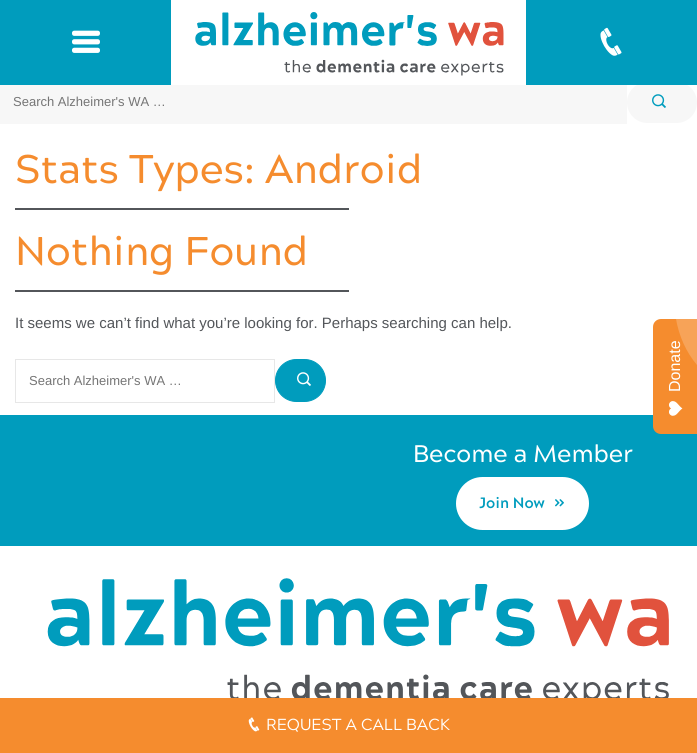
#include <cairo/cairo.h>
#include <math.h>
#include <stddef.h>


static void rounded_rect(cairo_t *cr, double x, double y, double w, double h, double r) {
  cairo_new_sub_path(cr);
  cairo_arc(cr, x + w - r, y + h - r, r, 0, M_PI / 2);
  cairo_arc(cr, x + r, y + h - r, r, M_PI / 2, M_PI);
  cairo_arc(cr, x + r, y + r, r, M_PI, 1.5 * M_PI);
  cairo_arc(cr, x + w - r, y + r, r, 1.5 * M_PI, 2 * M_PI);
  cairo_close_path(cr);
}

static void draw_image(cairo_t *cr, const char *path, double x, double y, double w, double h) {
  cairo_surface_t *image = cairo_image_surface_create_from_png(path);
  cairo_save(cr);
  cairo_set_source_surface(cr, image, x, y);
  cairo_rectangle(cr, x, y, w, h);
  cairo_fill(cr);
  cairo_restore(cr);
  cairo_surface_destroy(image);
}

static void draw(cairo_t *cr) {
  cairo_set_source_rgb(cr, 1, 1, 1);
  cairo_paint(cr);
  cairo_set_source_rgb(cr, 0, 156 / 255.0, 189 / 255.0);
  cairo_rectangle(cr, 0, 0, 171, 85);
  cairo_fill(cr);
  draw_image(cr, "images/1.png", 72, 30, 28, 23);
  draw_image(cr, "images/2.png", 195, 12, 309, 64);
  cairo_set_source_rgb(cr, 247 / 255.0, 247 / 255.0, 247 / 255.0);
  rounded_rect(cr, 627, 82, 70, 41, 20.5);
  cairo_fill(cr);
  cairo_set_source_rgb(cr, 0, 156 / 255.0, 189 / 255.0);
  cairo_rectangle(cr, 526, 0, 171, 85);
  cairo_fill(cr);
  draw_image(cr, "images/3.png", 600, 27, 22, 29);
  cairo_set_source_rgb(cr, 247 / 255.0, 247 / 255.0, 247 / 255.0);
  cairo_rectangle(cr, 0, 85, 627, 39);
  cairo_fill(cr);
  draw_image(cr, "images/4.png", 652, 94, 14, 14);
  cairo_set_source_rgb(cr, 83 / 255.0, 86 / 255.0, 90 / 255.0);
  cairo_rectangle(cr, 15, 208, 334, 2);
  cairo_fill(cr);
  cairo_rectangle(cr, 15, 290, 334, 2);
  cairo_fill(cr);
  cairo_rectangle(cr, 15.5, 359.5, 259, 43);
  cairo_set_source_rgb(cr, 231 / 255.0, 231 / 255.0, 231 / 255.0);
  cairo_set_line_width(cr, 1);
  cairo_stroke(cr);
  cairo_set_source_rgb(cr, 0, 156 / 255.0, 189 / 255.0);
  rounded_rect(cr, 275.5, 359.5, 50, 42, 21);
  cairo_fill_preserve(cr);
  cairo_stroke(cr);
  draw_image(cr, "images/5.png", 297, 372, 14, 14);
  cairo_rectangle(cr, 0, 415, 697, 131);
  cairo_fill(cr);
  cairo_set_source_rgb(cr, 1, 1, 1);
  rounded_rect(cr, 456, 477, 133, 53, 26.5);
  cairo_fill(cr);
  draw_image(cr, "images/6.png", 555, 499, 9, 8);
  draw_image(cr, "images/7.png", 47, 578, 622, 120);
  cairo_set_source_rgb(cr, 245 / 255.0, 140 / 255.0, 46 / 255.0);
  cairo_new_path(cr);
  cairo_move_to(cr, 653, 426);
  cairo_line_to(cr, 653, 327);
  cairo_curve_to(cr, 653, 322, 657, 319, 661, 319);
  cairo_line_to(cr, 697, 319);
  cairo_line_to(cr, 697, 434);
  cairo_line_to(cr, 661, 434);
  cairo_curve_to(cr, 657, 434, 653, 431, 653, 426);
  cairo_close_path(cr);
  cairo_fill(cr);
  draw_image(cr, "images/8.png", 669, 401, 14, 15);
  cairo_rectangle(cr, 0, 698, 697, 55);
  cairo_fill(cr);
  draw_image(cr, "images/9.png", 248, 717, 12, 15);
  cairo_select_font_face(cr, "Liberation Sans", CAIRO_FONT_SLANT_NORMAL, CAIRO_FONT_WEIGHT_NORMAL);
  cairo_set_font_size(cr, 13);
  cairo_set_source_rgb(cr, 117 / 255.0, 117 / 255.0, 117 / 255.0);
  cairo_move_to(cr, 13, 106);
  cairo_show_text(cr, "Search Alzheimer's WA …");
  cairo_select_font_face(cr, "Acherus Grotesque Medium", CAIRO_FONT_SLANT_NORMAL, CAIRO_FONT_WEIGHT_NORMAL);
  cairo_set_font_size(cr, 40);
  cairo_set_source_rgb(cr, 245 / 255.0, 140 / 255.0, 46 / 255.0);
  cairo_move_to(cr, 15, 183);
  cairo_show_text(cr, "Stats Types: Android");
  cairo_move_to(cr, 15, 265);
  cairo_show_text(cr, "Nothing Found");
  cairo_select_font_face(cr, "Liberation Sans", CAIRO_FONT_SLANT_NORMAL, CAIRO_FONT_WEIGHT_NORMAL);
  cairo_set_font_size(cr, 15);
  cairo_set_source_rgb(cr, 83 / 255.0, 86 / 255.0, 90 / 255.0);
  cairo_move_to(cr, 15, 328);
  cairo_show_text(cr, "It seems we can’t find what you’re looking for. Perhaps searching can help.");
  cairo_set_font_size(cr, 13);
  cairo_set_source_rgb(cr, 117 / 255.0, 117 / 255.0, 117 / 255.0);
  cairo_move_to(cr, 29, 385);
  cairo_show_text(cr, "Search Alzheimer's WA …");
  cairo_select_font_face(cr, "Acherus Grotesque Medium", CAIRO_FONT_SLANT_NORMAL, CAIRO_FONT_WEIGHT_NORMAL);
  cairo_set_font_size(cr, 24);
  cairo_set_source_rgb(cr, 1, 1, 1);
  cairo_move_to(cr, 413, 462);
  cairo_show_text(cr, "Become a Member");
  cairo_select_font_face(cr, "Acherus Grotesque", CAIRO_FONT_SLANT_NORMAL, CAIRO_FONT_WEIGHT_BOLD);
  cairo_set_font_size(cr, 15);
  cairo_set_source_rgb(cr, 0, 156 / 255.0, 189 / 255.0);
  cairo_move_to(cr, 479, 508);
  cairo_show_text(cr, "Join Now");
  cairo_select_font_face(cr, "Liberation Sans", CAIRO_FONT_SLANT_NORMAL, CAIRO_FONT_WEIGHT_NORMAL);
  cairo_set_font_size(cr, 16);
  cairo_set_source_rgb(cr, 1, 1, 1);
  cairo_save(cr);
  cairo_translate(cr, 680, 392);
  cairo_rotate(cr, -90 * M_PI / 180);
  cairo_move_to(cr, 0, 0);
  cairo_show_text(cr, "Donate");
  cairo_restore(cr);
  cairo_set_source_rgb(cr, 247 / 255.0, 163 / 255.0, 88 / 255.0);
  cairo_new_path(cr);
  cairo_move_to(cr, 697, 365);
  cairo_curve_to(cr, 686, 352, 679, 336, 676, 319);
  cairo_line_to(cr, 697, 319);
  cairo_close_path(cr);
  cairo_fill(cr);
  cairo_select_font_face(cr, "Acherus Grotesque", CAIRO_FONT_SLANT_NORMAL, CAIRO_FONT_WEIGHT_NORMAL);
  cairo_set_source_rgb(cr, 1, 1, 1);
  cairo_move_to(cr, 266, 730);
  cairo_show_text(cr, "REQUEST A CALL BACK");
}

int main(void) {
  cairo_surface_t *surface = cairo_image_surface_create(CAIRO_FORMAT_RGB24, 697, 753);
  cairo_t *cr = cairo_create(surface);
  cairo_font_options_t *options = cairo_font_options_create();
  cairo_font_options_set_hint_metrics(options, CAIRO_HINT_METRICS_OFF);
  cairo_font_options_set_hint_style(options, CAIRO_HINT_STYLE_NONE);
  cairo_set_font_options(cr, options);
  cairo_set_miter_limit(cr, 4);
  draw(cr);
  cairo_surface_write_to_png(surface, "out.png");
  cairo_font_options_destroy(options);
  cairo_destroy(cr);
  cairo_surface_destroy(surface);
  return 0;
}
